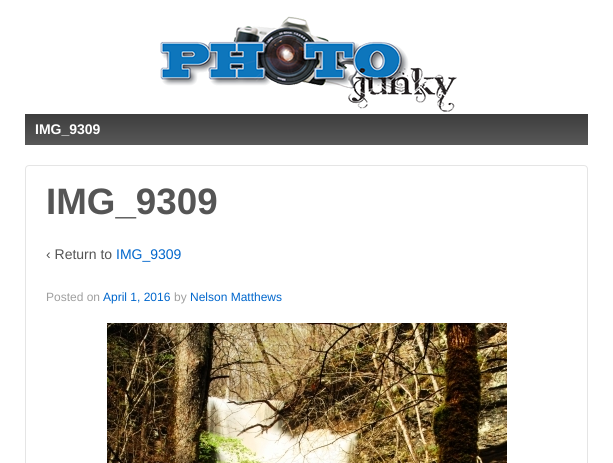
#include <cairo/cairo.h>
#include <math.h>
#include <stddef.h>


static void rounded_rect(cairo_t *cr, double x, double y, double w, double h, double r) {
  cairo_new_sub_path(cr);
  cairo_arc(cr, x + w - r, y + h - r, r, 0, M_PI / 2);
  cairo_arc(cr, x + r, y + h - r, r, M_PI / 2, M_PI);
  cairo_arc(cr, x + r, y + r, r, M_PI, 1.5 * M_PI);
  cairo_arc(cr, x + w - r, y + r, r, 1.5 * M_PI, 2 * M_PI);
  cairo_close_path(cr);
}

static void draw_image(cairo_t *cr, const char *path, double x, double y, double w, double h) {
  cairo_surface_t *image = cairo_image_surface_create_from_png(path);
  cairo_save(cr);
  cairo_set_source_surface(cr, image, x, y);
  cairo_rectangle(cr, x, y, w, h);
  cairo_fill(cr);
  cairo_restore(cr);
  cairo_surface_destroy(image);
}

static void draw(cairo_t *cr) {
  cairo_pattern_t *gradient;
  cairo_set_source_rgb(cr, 1, 1, 1);
  cairo_paint(cr);
  draw_image(cr, "images/1.png", 160, 16, 297, 96);
  gradient = cairo_pattern_create_linear(307, 145, 307, 114);
  cairo_pattern_add_color_stop_rgba(gradient, 0, 88 / 255.0, 88 / 255.0, 88 / 255.0, 1);
  cairo_pattern_add_color_stop_rgba(gradient, 1, 61 / 255.0, 61 / 255.0, 61 / 255.0, 1);
  cairo_set_source(cr, gradient);
  cairo_pattern_destroy(gradient);
  cairo_rectangle(cr, 25, 114, 563, 31);
  cairo_fill(cr);
  rounded_rect(cr, 25.5, 165.5, 562, 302, 3.5);
  cairo_set_source_rgb(cr, 229 / 255.0, 229 / 255.0, 229 / 255.0);
  cairo_set_line_width(cr, 1);
  cairo_stroke(cr);
  draw_image(cr, "images/2.png", 107, 323, 400, 140);
  cairo_select_font_face(cr, "Liberation Sans", CAIRO_FONT_SLANT_NORMAL, CAIRO_FONT_WEIGHT_BOLD);
  cairo_set_font_size(cr, 14);
  cairo_set_source_rgb(cr, 1, 1, 1);
  cairo_move_to(cr, 35, 134);
  cairo_show_text(cr, "IMG_9309");
  cairo_set_font_size(cr, 36.75);
  cairo_set_source_rgb(cr, 85 / 255.0, 85 / 255.0, 85 / 255.0);
  cairo_move_to(cr, 46, 214);
  cairo_show_text(cr, "IMG_9309");
  cairo_select_font_face(cr, "Liberation Sans", CAIRO_FONT_SLANT_NORMAL, CAIRO_FONT_WEIGHT_NORMAL);
  cairo_set_font_size(cr, 14);
  cairo_move_to(cr, 46, 259);
  cairo_show_text(cr, "‹ Return to");
  cairo_set_source_rgb(cr, 0, 102 / 255.0, 204 / 255.0);
  cairo_move_to(cr, 116, 259);
  cairo_show_text(cr, "IMG_9309");
  cairo_set_font_size(cr, 12);
  cairo_set_source_rgb(cr, 159 / 255.0, 159 / 255.0, 159 / 255.0);
  cairo_move_to(cr, 46, 301);
  cairo_show_text(cr, "Posted on");
  cairo_set_source_rgb(cr, 0, 102 / 255.0, 204 / 255.0);
  cairo_move_to(cr, 103, 301);
  cairo_show_text(cr, "April 1, 2016");
  cairo_set_source_rgb(cr, 159 / 255.0, 159 / 255.0, 159 / 255.0);
  cairo_move_to(cr, 174, 301);
  cairo_show_text(cr, "by");
  cairo_set_source_rgb(cr, 0, 102 / 255.0, 204 / 255.0);
  cairo_move_to(cr, 190, 301);
  cairo_show_text(cr, "Nelson Matthews");
}

int main(void) {
  cairo_surface_t *surface = cairo_image_surface_create(CAIRO_FORMAT_RGB24, 613, 463);
  cairo_t *cr = cairo_create(surface);
  cairo_font_options_t *options = cairo_font_options_create();
  cairo_font_options_set_hint_metrics(options, CAIRO_HINT_METRICS_OFF);
  cairo_font_options_set_hint_style(options, CAIRO_HINT_STYLE_NONE);
  cairo_set_font_options(cr, options);
  cairo_set_miter_limit(cr, 4);
  draw(cr);
  cairo_surface_write_to_png(surface, "out.png");
  cairo_font_options_destroy(options);
  cairo_destroy(cr);
  cairo_surface_destroy(surface);
  return 0;
}
